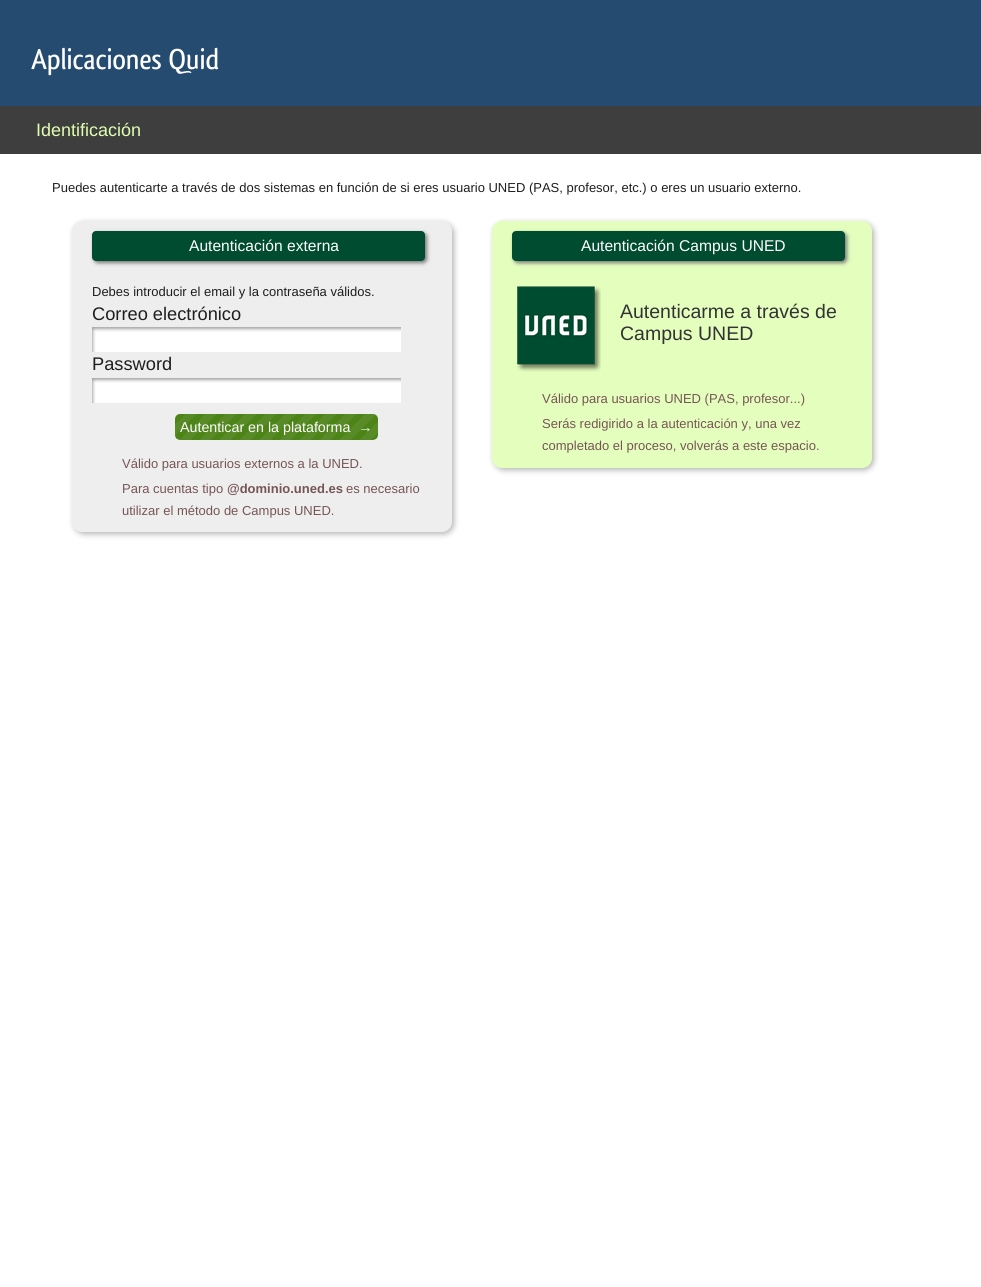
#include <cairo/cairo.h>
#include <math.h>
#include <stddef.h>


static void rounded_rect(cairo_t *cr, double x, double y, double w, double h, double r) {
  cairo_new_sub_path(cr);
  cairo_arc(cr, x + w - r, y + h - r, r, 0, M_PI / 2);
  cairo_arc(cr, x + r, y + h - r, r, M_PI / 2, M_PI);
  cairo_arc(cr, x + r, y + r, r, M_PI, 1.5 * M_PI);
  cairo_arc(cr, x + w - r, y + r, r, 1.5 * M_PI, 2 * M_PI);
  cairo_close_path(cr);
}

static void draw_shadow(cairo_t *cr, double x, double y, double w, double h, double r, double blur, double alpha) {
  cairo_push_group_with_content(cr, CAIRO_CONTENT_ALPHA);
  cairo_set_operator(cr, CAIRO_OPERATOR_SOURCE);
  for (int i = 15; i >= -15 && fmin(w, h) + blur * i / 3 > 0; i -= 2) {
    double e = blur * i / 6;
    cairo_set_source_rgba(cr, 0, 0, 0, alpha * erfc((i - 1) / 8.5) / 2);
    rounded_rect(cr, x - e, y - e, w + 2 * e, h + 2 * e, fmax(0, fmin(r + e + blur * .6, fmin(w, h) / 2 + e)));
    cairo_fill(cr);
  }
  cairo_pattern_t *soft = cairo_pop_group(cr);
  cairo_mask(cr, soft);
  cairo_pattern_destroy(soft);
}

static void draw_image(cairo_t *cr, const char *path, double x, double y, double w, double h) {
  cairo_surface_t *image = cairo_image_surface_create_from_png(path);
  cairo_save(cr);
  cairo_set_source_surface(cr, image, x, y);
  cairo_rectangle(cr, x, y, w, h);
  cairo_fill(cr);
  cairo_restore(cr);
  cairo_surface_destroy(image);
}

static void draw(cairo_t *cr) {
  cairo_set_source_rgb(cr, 1, 1, 1);
  cairo_paint(cr);
  cairo_set_source_rgb(cr, 37 / 255.0, 75 / 255.0, 113 / 255.0);
  cairo_rectangle(cr, 0, 0, 981, 106);
  cairo_fill(cr);
  cairo_set_source_rgb(cr, 62 / 255.0, 62 / 255.0, 62 / 255.0);
  cairo_rectangle(cr, 0, 106, 981, 48);
  cairo_fill(cr);
  cairo_set_source_rgb(cr, 0, 0, 0);
  draw_shadow(cr, 74, 223, 380, 311, 10, 3, 0.3);
  cairo_set_source_rgb(cr, 238 / 255.0, 238 / 255.0, 238 / 255.0);
  rounded_rect(cr, 72, 221, 380, 311, 10);
  cairo_fill(cr);
  cairo_set_source_rgb(cr, 119 / 255.0, 119 / 255.0, 119 / 255.0);
  draw_shadow(cr, 94, 233, 333, 30, 4, 2, 1);
  cairo_set_source_rgb(cr, 0, 76 / 255.0, 48 / 255.0);
  rounded_rect(cr, 92, 231, 333, 30, 4);
  cairo_fill(cr);
  draw_image(cr, "images/1.png", 92, 327, 309, 25);
  draw_image(cr, "images/1.png", 92, 378, 309, 25);
  draw_image(cr, "images/2.png", 175, 414, 203, 26);
  cairo_set_source_rgb(cr, 0, 0, 0);
  draw_shadow(cr, 494, 223, 380, 247, 10, 3, 0.3);
  cairo_set_source_rgb(cr, 228 / 255.0, 254 / 255.0, 190 / 255.0);
  rounded_rect(cr, 492, 221, 380, 247, 10);
  cairo_fill(cr);
  cairo_set_source_rgb(cr, 119 / 255.0, 119 / 255.0, 119 / 255.0);
  draw_shadow(cr, 514, 233, 333, 30, 4, 2, 1);
  cairo_set_source_rgb(cr, 0, 76 / 255.0, 48 / 255.0);
  rounded_rect(cr, 512, 231, 333, 30, 4);
  cairo_fill(cr);
  draw_image(cr, "images/3.png", 517, 286, 84, 86);
  cairo_select_font_face(cr, "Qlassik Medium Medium", CAIRO_FONT_SLANT_NORMAL, CAIRO_FONT_WEIGHT_NORMAL);
  cairo_set_font_size(cr, 30);
  cairo_set_source_rgb(cr, 1, 1, 1);
  cairo_move_to(cr, 31, 69);
  cairo_show_text(cr, "Aplicaciones Quid");
  cairo_select_font_face(cr, "Liberation Sans", CAIRO_FONT_SLANT_NORMAL, CAIRO_FONT_WEIGHT_NORMAL);
  cairo_set_font_size(cr, 18);
  cairo_set_source_rgb(cr, 224 / 255.0, 1, 177 / 255.0);
  cairo_move_to(cr, 36, 136);
  cairo_show_text(cr, "Identificación");
  cairo_set_font_size(cr, 13);
  cairo_set_source_rgb(cr, 30 / 255.0, 30 / 255.0, 30 / 255.0);
  cairo_move_to(cr, 52, 192);
  cairo_show_text(cr, "Puedes autenticarte a través de dos sistemas en función de si eres usuario UNED (PAS, profesor, etc.) o eres un usuario externo.");
  cairo_set_font_size(cr, 15.6);
  cairo_set_source_rgb(cr, 1, 1, 1);
  cairo_move_to(cr, 189, 251);
  cairo_show_text(cr, "Autenticación externa");
  cairo_set_font_size(cr, 13);
  cairo_set_source_rgb(cr, 30 / 255.0, 30 / 255.0, 30 / 255.0);
  cairo_move_to(cr, 92, 296);
  cairo_show_text(cr, "Debes introducir el email y la contraseña válidos.");
  cairo_set_font_size(cr, 18.25);
  cairo_move_to(cr, 92, 320);
  cairo_show_text(cr, "Correo electrónico");
  cairo_move_to(cr, 92, 370);
  cairo_show_text(cr, "Password");
  cairo_set_font_size(cr, 14.25);
  cairo_set_source_rgb(cr, 1, 1, 1);
  cairo_move_to(cr, 180, 432);
  cairo_show_text(cr, "Autenticar en la plataforma  →");
  cairo_set_font_size(cr, 13);
  cairo_set_source_rgb(cr, 119 / 255.0, 85 / 255.0, 85 / 255.0);
  cairo_move_to(cr, 122, 468);
  cairo_show_text(cr, "Válido para usuarios externos a la UNED.");
  cairo_move_to(cr, 122, 493);
  cairo_show_text(cr, "Para cuentas tipo");
  cairo_select_font_face(cr, "Liberation Sans", CAIRO_FONT_SLANT_NORMAL, CAIRO_FONT_WEIGHT_BOLD);
  cairo_move_to(cr, 227, 493);
  cairo_show_text(cr, "@dominio.uned.es");
  cairo_select_font_face(cr, "Liberation Sans", CAIRO_FONT_SLANT_NORMAL, CAIRO_FONT_WEIGHT_NORMAL);
  cairo_move_to(cr, 346, 493);
  cairo_show_text(cr, "es necesario");
  cairo_move_to(cr, 122, 515);
  cairo_show_text(cr, "utilizar el método de Campus UNED.");
  cairo_set_font_size(cr, 15.6);
  cairo_set_source_rgb(cr, 1, 1, 1);
  cairo_move_to(cr, 581, 251);
  cairo_show_text(cr, "Autenticación Campus UNED");
  cairo_set_font_size(cr, 19.5);
  cairo_set_source_rgb(cr, 51 / 255.0, 51 / 255.0, 51 / 255.0);
  cairo_move_to(cr, 620, 318);
  cairo_show_text(cr, "Autenticarme a través de");
  cairo_move_to(cr, 620, 340);
  cairo_show_text(cr, "Campus UNED");
  cairo_set_font_size(cr, 13);
  cairo_set_source_rgb(cr, 119 / 255.0, 85 / 255.0, 85 / 255.0);
  cairo_move_to(cr, 542, 403);
  cairo_show_text(cr, "Válido para usuarios UNED (PAS, profesor...)");
  cairo_move_to(cr, 542, 428);
  cairo_show_text(cr, "Serás redigirido a la autenticación y, una vez");
  cairo_move_to(cr, 542, 450);
  cairo_show_text(cr, "completado el proceso, volverás a este espacio.");
}

int main(void) {
  cairo_surface_t *surface = cairo_image_surface_create(CAIRO_FORMAT_RGB24, 981, 1287);
  cairo_t *cr = cairo_create(surface);
  cairo_font_options_t *options = cairo_font_options_create();
  cairo_font_options_set_hint_metrics(options, CAIRO_HINT_METRICS_OFF);
  cairo_font_options_set_hint_style(options, CAIRO_HINT_STYLE_NONE);
  cairo_set_font_options(cr, options);
  cairo_set_miter_limit(cr, 4);
  draw(cr);
  cairo_surface_write_to_png(surface, "out.png");
  cairo_font_options_destroy(options);
  cairo_destroy(cr);
  cairo_surface_destroy(surface);
  return 0;
}
